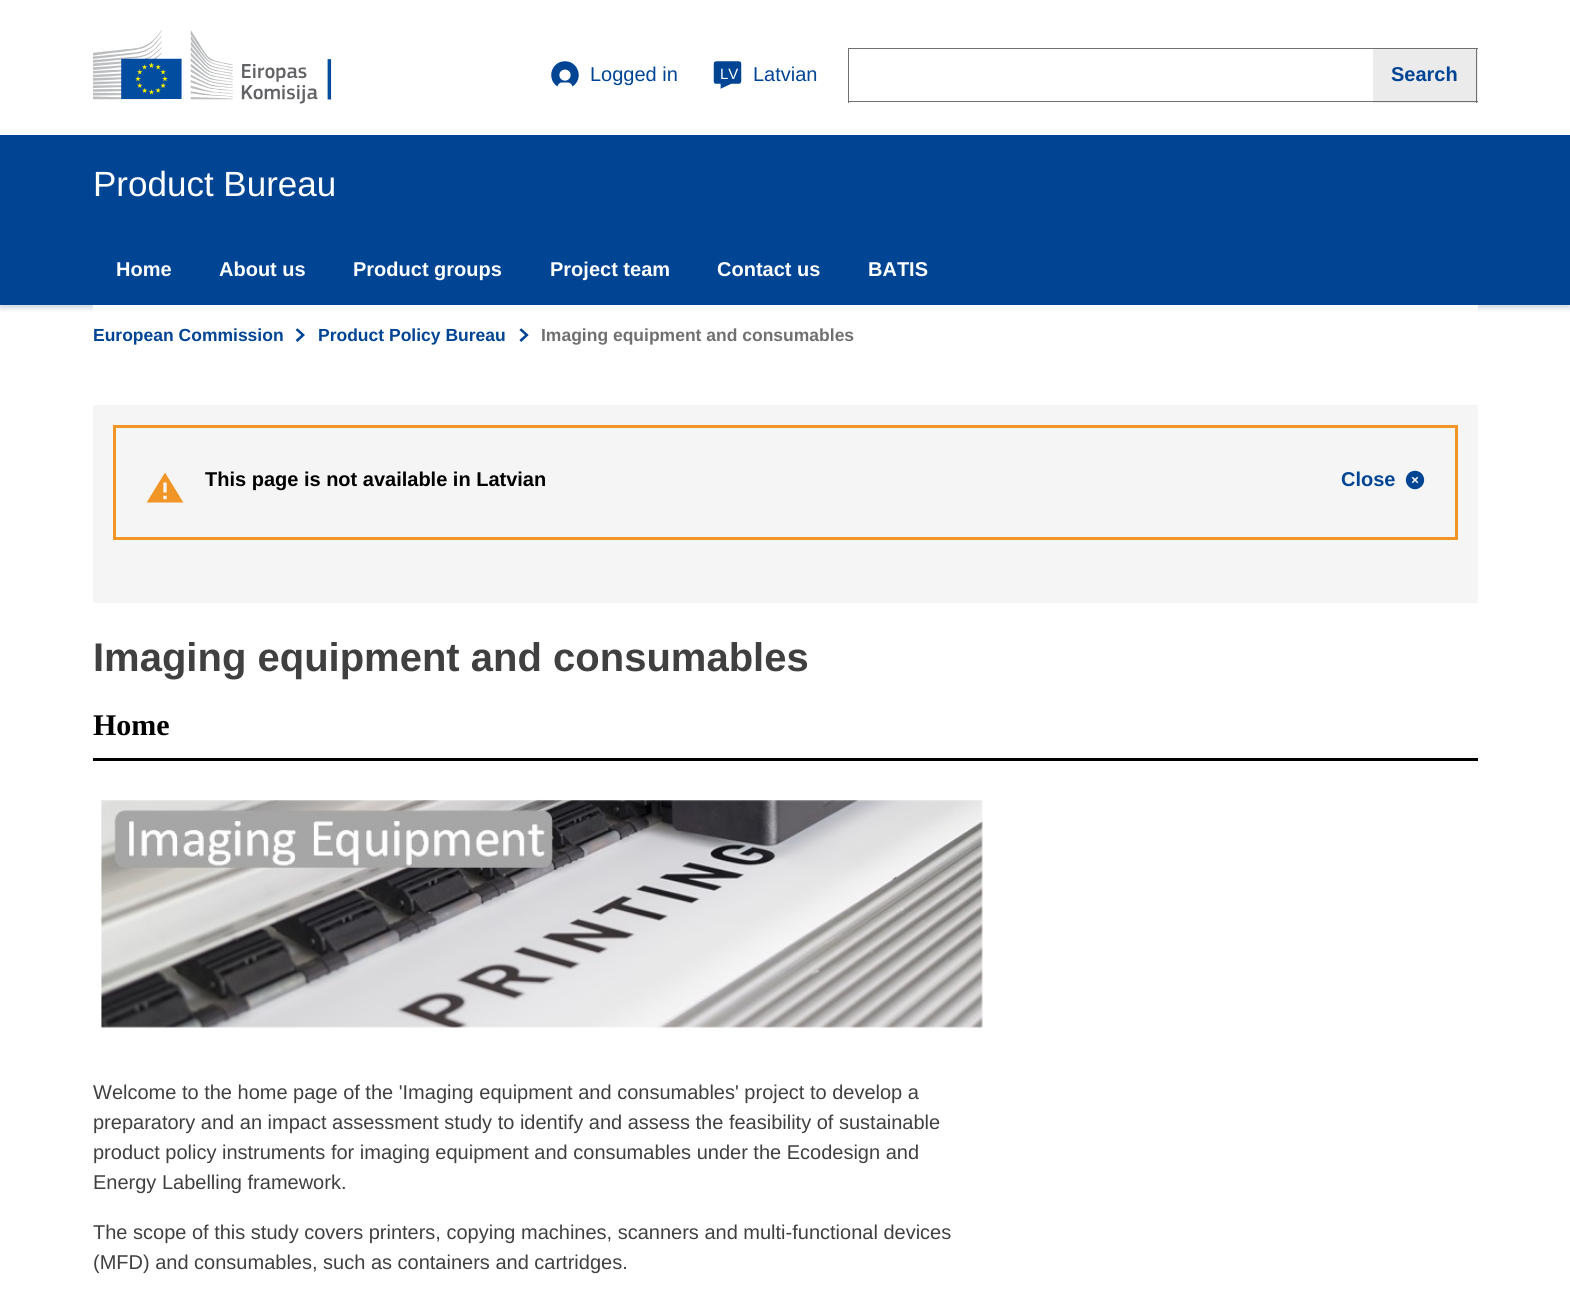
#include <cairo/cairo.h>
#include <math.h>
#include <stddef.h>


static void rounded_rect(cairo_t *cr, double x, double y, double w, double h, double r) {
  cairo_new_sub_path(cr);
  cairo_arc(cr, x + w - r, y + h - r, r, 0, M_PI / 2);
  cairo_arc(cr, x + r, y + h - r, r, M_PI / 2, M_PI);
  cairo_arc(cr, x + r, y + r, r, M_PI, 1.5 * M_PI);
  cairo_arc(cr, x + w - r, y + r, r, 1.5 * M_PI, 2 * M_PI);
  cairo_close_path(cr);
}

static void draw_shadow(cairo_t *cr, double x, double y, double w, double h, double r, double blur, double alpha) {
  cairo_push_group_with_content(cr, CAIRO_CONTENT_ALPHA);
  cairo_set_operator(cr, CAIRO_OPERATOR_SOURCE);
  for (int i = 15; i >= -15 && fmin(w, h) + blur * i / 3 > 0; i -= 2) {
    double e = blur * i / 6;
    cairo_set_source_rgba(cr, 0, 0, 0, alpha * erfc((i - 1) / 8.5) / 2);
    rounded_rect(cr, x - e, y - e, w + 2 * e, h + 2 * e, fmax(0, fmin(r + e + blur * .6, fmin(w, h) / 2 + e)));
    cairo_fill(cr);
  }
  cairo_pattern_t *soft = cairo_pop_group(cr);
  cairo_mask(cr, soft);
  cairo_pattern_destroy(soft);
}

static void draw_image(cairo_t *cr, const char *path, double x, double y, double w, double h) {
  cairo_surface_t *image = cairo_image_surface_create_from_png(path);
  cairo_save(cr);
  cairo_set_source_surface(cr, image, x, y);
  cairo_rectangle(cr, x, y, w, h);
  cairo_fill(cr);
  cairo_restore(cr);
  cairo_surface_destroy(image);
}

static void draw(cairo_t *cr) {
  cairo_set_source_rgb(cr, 1, 1, 1);
  cairo_paint(cr);
  cairo_save(cr);
  cairo_rectangle(cr, 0, 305, 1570, 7);
  cairo_clip(cr);
  cairo_set_source_rgb(cr, 0, 47 / 255.0, 103 / 255.0);
  draw_shadow(cr, 0, 3, 1570, 305, 0, 3, 0.2);
  cairo_restore(cr);
  draw_image(cr, "images/1.png", 93, 30, 239, 74);
  draw_image(cr, "images/2.png", 551, 61, 28, 26);
  draw_image(cr, "images/3.png", 713, 61, 29, 28);
  cairo_set_source_rgb(cr, 112 / 255.0, 112 / 255.0, 112 / 255.0);
  cairo_rectangle(cr, 848, 48, 630, 1);
  cairo_fill(cr);
  cairo_rectangle(cr, 848, 101, 525, 1);
  cairo_fill(cr);
  cairo_rectangle(cr, 848, 48, 1, 55);
  cairo_fill(cr);
  cairo_set_source_rgb(cr, 235 / 255.0, 235 / 255.0, 235 / 255.0);
  cairo_rectangle(cr, 1373, 49, 105, 54);
  cairo_fill(cr);
  cairo_set_source_rgb(cr, 112 / 255.0, 112 / 255.0, 112 / 255.0);
  cairo_rectangle(cr, 1476, 48, 1, 55);
  cairo_fill(cr);
  cairo_rectangle(cr, 1373, 101, 105, 1);
  cairo_fill(cr);
  cairo_set_source_rgb(cr, 0, 68 / 255.0, 148 / 255.0);
  cairo_rectangle(cr, 0, 135, 1570, 170);
  cairo_fill(cr);
  cairo_set_source_rgb(cr, 1, 1, 1);
  cairo_rectangle(cr, 93, 305, 1385, 8);
  cairo_fill(cr);
  draw_image(cr, "images/4.png", 295, 328, 10, 14);
  draw_image(cr, "images/5.png", 519, 328, 10, 14);
  cairo_set_source_rgb(cr, 245 / 255.0, 245 / 255.0, 245 / 255.0);
  cairo_rectangle(cr, 93, 405, 1385, 198);
  cairo_fill(cr);
  cairo_rectangle(cr, 114.5, 426.5, 1342, 112);
  cairo_set_source_rgb(cr, 242 / 255.0, 149 / 255.0, 39 / 255.0);
  cairo_set_line_width(cr, 3);
  cairo_stroke(cr);
  draw_image(cr, "images/6.png", 146, 472, 38, 31);
  draw_image(cr, "images/7.png", 1405, 470, 20, 20);
  cairo_set_source_rgb(cr, 0, 0, 0);
  cairo_rectangle(cr, 93, 758, 1385, 3);
  cairo_fill(cr);
  draw_image(cr, "images/8.png", 101, 799, 882, 229);
  cairo_select_font_face(cr, "Liberation Sans", CAIRO_FONT_SLANT_NORMAL, CAIRO_FONT_WEIGHT_NORMAL);
  cairo_set_font_size(cr, 20);
  cairo_set_source_rgb(cr, 0, 68 / 255.0, 148 / 255.0);
  cairo_move_to(cr, 590, 81);
  cairo_show_text(cr, "Logged in");
  cairo_set_font_size(cr, 15);
  cairo_set_source_rgb(cr, 1, 1, 1);
  cairo_move_to(cr, 720, 79);
  cairo_show_text(cr, "LV");
  cairo_set_font_size(cr, 20);
  cairo_set_source_rgb(cr, 0, 68 / 255.0, 148 / 255.0);
  cairo_move_to(cr, 753, 81);
  cairo_show_text(cr, "Latvian");
  cairo_select_font_face(cr, "Liberation Sans", CAIRO_FONT_SLANT_NORMAL, CAIRO_FONT_WEIGHT_BOLD);
  cairo_move_to(cr, 1391, 81);
  cairo_show_text(cr, "Search");
  cairo_select_font_face(cr, "Liberation Sans", CAIRO_FONT_SLANT_NORMAL, CAIRO_FONT_WEIGHT_NORMAL);
  cairo_set_font_size(cr, 35);
  cairo_set_source_rgb(cr, 1, 1, 1);
  cairo_move_to(cr, 93, 196);
  cairo_show_text(cr, "Product Bureau");
  cairo_select_font_face(cr, "Liberation Sans", CAIRO_FONT_SLANT_NORMAL, CAIRO_FONT_WEIGHT_BOLD);
  cairo_set_font_size(cr, 20);
  cairo_move_to(cr, 116, 276);
  cairo_show_text(cr, "Home");
  cairo_move_to(cr, 219, 276);
  cairo_show_text(cr, "About us");
  cairo_move_to(cr, 353, 276);
  cairo_show_text(cr, "Product groups");
  cairo_move_to(cr, 550, 276);
  cairo_show_text(cr, "Project team");
  cairo_move_to(cr, 717, 276);
  cairo_show_text(cr, "Contact us");
  cairo_move_to(cr, 868, 276);
  cairo_show_text(cr, "BATIS");
  cairo_set_font_size(cr, 17.5);
  cairo_set_source_rgb(cr, 0, 68 / 255.0, 148 / 255.0);
  cairo_move_to(cr, 93, 341);
  cairo_show_text(cr, "European Commission");
  cairo_move_to(cr, 318, 341);
  cairo_show_text(cr, "Product Policy Bureau");
  cairo_set_source_rgb(cr, 112 / 255.0, 112 / 255.0, 112 / 255.0);
  cairo_move_to(cr, 541, 341);
  cairo_show_text(cr, "Imaging equipment and consumables");
  cairo_set_font_size(cr, 20);
  cairo_set_source_rgb(cr, 0, 0, 0);
  cairo_move_to(cr, 205, 486);
  cairo_show_text(cr, "This page is not available in Latvian");
  cairo_set_source_rgb(cr, 0, 68 / 255.0, 148 / 255.0);
  cairo_move_to(cr, 1341, 486);
  cairo_show_text(cr, "Close");
  cairo_set_font_size(cr, 40);
  cairo_set_source_rgb(cr, 64 / 255.0, 64 / 255.0, 64 / 255.0);
  cairo_move_to(cr, 93, 671);
  cairo_show_text(cr, "Imaging equipment and consumables");
  cairo_select_font_face(cr, "Liberation Serif", CAIRO_FONT_SLANT_NORMAL, CAIRO_FONT_WEIGHT_BOLD);
  cairo_set_font_size(cr, 30);
  cairo_set_source_rgb(cr, 0, 0, 0);
  cairo_move_to(cr, 93, 735);
  cairo_show_text(cr, "Home");
  cairo_select_font_face(cr, "Liberation Sans", CAIRO_FONT_SLANT_NORMAL, CAIRO_FONT_WEIGHT_NORMAL);
  cairo_set_font_size(cr, 20);
  cairo_set_source_rgb(cr, 64 / 255.0, 64 / 255.0, 64 / 255.0);
  cairo_move_to(cr, 93, 1099);
  cairo_show_text(cr, "Welcome to the home page of the 'Imaging equipment and consumables' project to develop a");
  cairo_move_to(cr, 93, 1129);
  cairo_show_text(cr, "preparatory and an impact assessment study to identify and assess the feasibility of sustainable");
  cairo_move_to(cr, 93, 1159);
  cairo_show_text(cr, "product policy instruments for imaging equipment and consumables under the Ecodesign and");
  cairo_move_to(cr, 93, 1189);
  cairo_show_text(cr, "Energy Labelling framework.");
  cairo_move_to(cr, 93, 1239);
  cairo_show_text(cr, "The scope of this study covers printers, copying machines, scanners and multi-functional devices");
  cairo_move_to(cr, 93, 1269);
  cairo_show_text(cr, "(MFD) and consumables, such as containers and cartridges.");
}

int main(void) {
  cairo_surface_t *surface = cairo_image_surface_create(CAIRO_FORMAT_RGB24, 1570, 1303);
  cairo_t *cr = cairo_create(surface);
  cairo_font_options_t *options = cairo_font_options_create();
  cairo_font_options_set_hint_metrics(options, CAIRO_HINT_METRICS_OFF);
  cairo_font_options_set_hint_style(options, CAIRO_HINT_STYLE_NONE);
  cairo_set_font_options(cr, options);
  cairo_set_miter_limit(cr, 4);
  draw(cr);
  cairo_surface_write_to_png(surface, "out.png");
  cairo_font_options_destroy(options);
  cairo_destroy(cr);
  cairo_surface_destroy(surface);
  return 0;
}
